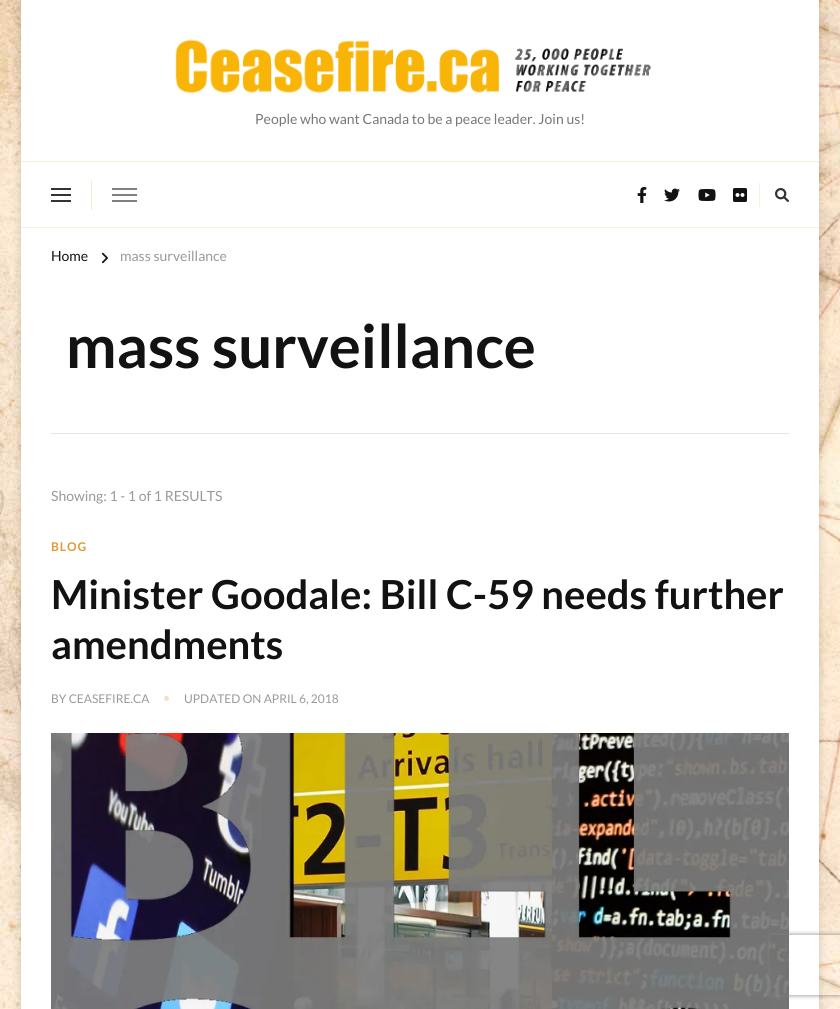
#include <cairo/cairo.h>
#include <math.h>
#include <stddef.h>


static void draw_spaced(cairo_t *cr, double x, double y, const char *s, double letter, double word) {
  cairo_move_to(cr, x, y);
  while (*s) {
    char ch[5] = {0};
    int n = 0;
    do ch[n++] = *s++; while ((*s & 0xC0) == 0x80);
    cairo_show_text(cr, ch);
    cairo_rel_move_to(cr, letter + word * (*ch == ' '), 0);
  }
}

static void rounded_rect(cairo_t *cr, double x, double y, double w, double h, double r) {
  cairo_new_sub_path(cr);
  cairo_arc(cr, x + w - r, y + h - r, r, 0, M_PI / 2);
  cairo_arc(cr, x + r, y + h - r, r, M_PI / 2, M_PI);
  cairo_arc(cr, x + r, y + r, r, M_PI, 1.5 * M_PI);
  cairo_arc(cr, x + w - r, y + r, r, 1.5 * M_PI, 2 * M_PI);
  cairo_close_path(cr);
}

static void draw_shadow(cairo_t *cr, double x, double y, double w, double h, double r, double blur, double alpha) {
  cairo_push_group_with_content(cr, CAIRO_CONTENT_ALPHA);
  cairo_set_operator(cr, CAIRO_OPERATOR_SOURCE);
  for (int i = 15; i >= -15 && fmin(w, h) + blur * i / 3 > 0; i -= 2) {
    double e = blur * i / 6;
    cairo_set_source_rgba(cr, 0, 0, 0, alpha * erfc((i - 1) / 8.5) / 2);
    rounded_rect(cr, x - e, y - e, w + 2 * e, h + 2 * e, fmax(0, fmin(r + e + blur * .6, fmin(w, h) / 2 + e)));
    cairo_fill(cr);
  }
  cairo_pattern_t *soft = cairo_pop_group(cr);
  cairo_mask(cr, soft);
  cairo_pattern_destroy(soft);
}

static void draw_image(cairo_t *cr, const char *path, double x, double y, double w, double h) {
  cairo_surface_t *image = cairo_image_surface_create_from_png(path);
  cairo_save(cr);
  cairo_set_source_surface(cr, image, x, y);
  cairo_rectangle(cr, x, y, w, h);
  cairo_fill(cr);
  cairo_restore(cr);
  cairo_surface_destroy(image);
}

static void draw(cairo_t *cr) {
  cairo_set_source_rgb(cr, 1, 1, 1);
  cairo_paint(cr);
  draw_image(cr, "images/1.png", 0, 0, 840, 1009);
  cairo_set_source_rgb(cr, 0, 0, 0);
  draw_shadow(cr, 21, 0, 798, 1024, 0, 5, 0.16);
  cairo_set_source_rgb(cr, 1, 1, 1);
  cairo_rectangle(cr, 21, 0, 798, 1009);
  cairo_fill(cr);
  draw_image(cr, "images/2.png", 175, 39, 476, 54);
  cairo_set_source_rgb(cr, 250 / 255.0, 240 / 255.0, 224 / 255.0);
  cairo_rectangle(cr, 21, 161, 798, 1);
  cairo_fill(cr);
  cairo_rectangle(cr, 21, 227, 798, 1);
  cairo_fill(cr);
  cairo_set_source_rgb(cr, 248 / 255.0, 235 / 255.0, 214 / 255.0);
  cairo_rectangle(cr, 91, 180, 1, 30);
  cairo_fill(cr);
  cairo_set_source_rgb(cr, 51 / 255.0, 51 / 255.0, 51 / 255.0);
  cairo_rectangle(cr, 51, 188, 20, 2);
  cairo_fill(cr);
  cairo_rectangle(cr, 51, 194, 20, 2);
  cairo_fill(cr);
  cairo_rectangle(cr, 51, 200, 20, 2);
  cairo_fill(cr);
  cairo_set_source_rgb(cr, 128 / 255.0, 128 / 255.0, 128 / 255.0);
  cairo_rectangle(cr, 112, 188, 25, 2);
  cairo_fill(cr);
  cairo_rectangle(cr, 112, 194, 25, 2);
  cairo_fill(cr);
  cairo_rectangle(cr, 112, 200, 25, 2);
  cairo_fill(cr);
  draw_image(cr, "images/3.png", 637, 187, 10, 16);
  draw_image(cr, "images/4.png", 664, 188, 16, 14);
  draw_image(cr, "images/5.png", 698, 189, 18, 12);
  draw_image(cr, "images/6.png", 733, 188, 14, 14);
  cairo_set_source_rgb(cr, 250 / 255.0, 240 / 255.0, 224 / 255.0);
  cairo_rectangle(cr, 759, 183, 1, 24);
  cairo_fill(cr);
  draw_image(cr, "images/7.png", 775, 188, 14, 14);
  draw_image(cr, "images/8.png", 101, 252, 7, 12);
  cairo_set_source_rgb(cr, 230 / 255.0, 230 / 255.0, 230 / 255.0);
  cairo_rectangle(cr, 51, 433, 738, 1);
  cairo_fill(cr);
  cairo_set_source_rgb(cr, 245 / 255.0, 224 / 255.0, 194 / 255.0);
  cairo_arc(cr, 166.5, 698.5, 2.5, 0, 2 * M_PI);
  cairo_fill(cr);
  draw_image(cr, "images/9.png", 51, 733, 738, 276);
  cairo_save(cr);
  cairo_set_fill_rule(cr, CAIRO_FILL_RULE_EVEN_ODD);
  cairo_new_path(cr);
  cairo_move_to(cr, 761, 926);
  cairo_line_to(cr, 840, 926);
  cairo_line_to(cr, 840, 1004);
  cairo_line_to(cr, 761, 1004);
  cairo_close_path(cr);
  cairo_move_to(cr, 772, 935);
  cairo_line_to(cr, 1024, 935);
  cairo_curve_to(cr, 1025, 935, 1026, 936, 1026, 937);
  cairo_line_to(cr, 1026, 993);
  cairo_curve_to(cr, 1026, 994, 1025, 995, 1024, 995);
  cairo_line_to(cr, 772, 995);
  cairo_curve_to(cr, 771, 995, 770, 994, 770, 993);
  cairo_line_to(cr, 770, 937);
  cairo_curve_to(cr, 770, 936, 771, 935, 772, 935);
  cairo_close_path(cr);
  cairo_clip(cr);
  cairo_set_source_rgb(cr, 128 / 255.0, 128 / 255.0, 128 / 255.0);
  draw_shadow(cr, 770, 935, 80, 60, 2, 2.5, 1);
  cairo_restore(cr);
  cairo_select_font_face(cr, "Lato", CAIRO_FONT_SLANT_NORMAL, CAIRO_FONT_WEIGHT_NORMAL);
  cairo_set_font_size(cr, 14);
  cairo_set_source_rgb(cr, 119 / 255.0, 119 / 255.0, 119 / 255.0);
  cairo_move_to(cr, 255, 124);
  cairo_show_text(cr, "People who want Canada to be a peace leader. Join us!");
  cairo_set_source_rgb(cr, 18 / 255.0, 18 / 255.0, 18 / 255.0);
  cairo_move_to(cr, 51, 261);
  cairo_show_text(cr, "Home");
  cairo_set_source_rgb(cr, 153 / 255.0, 153 / 255.0, 153 / 255.0);
  cairo_move_to(cr, 120, 261);
  cairo_show_text(cr, "mass surveillance");
  cairo_select_font_face(cr, "Lato", CAIRO_FONT_SLANT_NORMAL, CAIRO_FONT_WEIGHT_BOLD);
  cairo_set_font_size(cr, 60);
  cairo_set_source_rgb(cr, 18 / 255.0, 18 / 255.0, 18 / 255.0);
  cairo_move_to(cr, 66, 368);
  cairo_show_text(cr, "mass surveillance");
  cairo_select_font_face(cr, "Lato", CAIRO_FONT_SLANT_NORMAL, CAIRO_FONT_WEIGHT_NORMAL);
  cairo_set_font_size(cr, 14);
  cairo_set_source_rgb(cr, 153 / 255.0, 153 / 255.0, 153 / 255.0);
  cairo_move_to(cr, 51, 501);
  cairo_show_text(cr, "Showing: 1 - 1 of 1 RESULTS");
  cairo_select_font_face(cr, "Lato", CAIRO_FONT_SLANT_NORMAL, CAIRO_FONT_WEIGHT_BOLD);
  cairo_set_font_size(cr, 12);
  cairo_set_source_rgb(cr, 221 / 255.0, 153 / 255.0, 51 / 255.0);
  draw_spaced(cr, 51, 551, "BLOG", 1, 0);
  cairo_set_font_size(cr, 40);
  cairo_set_source_rgb(cr, 18 / 255.0, 18 / 255.0, 18 / 255.0);
  cairo_move_to(cr, 51, 609);
  cairo_show_text(cr, "Minister Goodale: Bill C-59 needs further");
  cairo_move_to(cr, 51, 659);
  cairo_show_text(cr, "amendments");
  cairo_select_font_face(cr, "Lato", CAIRO_FONT_SLANT_NORMAL, CAIRO_FONT_WEIGHT_NORMAL);
  cairo_set_font_size(cr, 12);
  cairo_set_source_rgb(cr, 153 / 255.0, 153 / 255.0, 153 / 255.0);
  cairo_move_to(cr, 51, 703);
  cairo_show_text(cr, "BY CEASEFIRE.CA");
  cairo_move_to(cr, 184, 703);
  cairo_show_text(cr, "UPDATED ON APRIL 6, 2018");
}

int main(void) {
  cairo_surface_t *surface = cairo_image_surface_create(CAIRO_FORMAT_RGB24, 840, 1009);
  cairo_t *cr = cairo_create(surface);
  cairo_font_options_t *options = cairo_font_options_create();
  cairo_font_options_set_hint_metrics(options, CAIRO_HINT_METRICS_OFF);
  cairo_font_options_set_hint_style(options, CAIRO_HINT_STYLE_NONE);
  cairo_set_font_options(cr, options);
  cairo_set_miter_limit(cr, 4);
  draw(cr);
  cairo_surface_write_to_png(surface, "out.png");
  cairo_font_options_destroy(options);
  cairo_destroy(cr);
  cairo_surface_destroy(surface);
  return 0;
}
